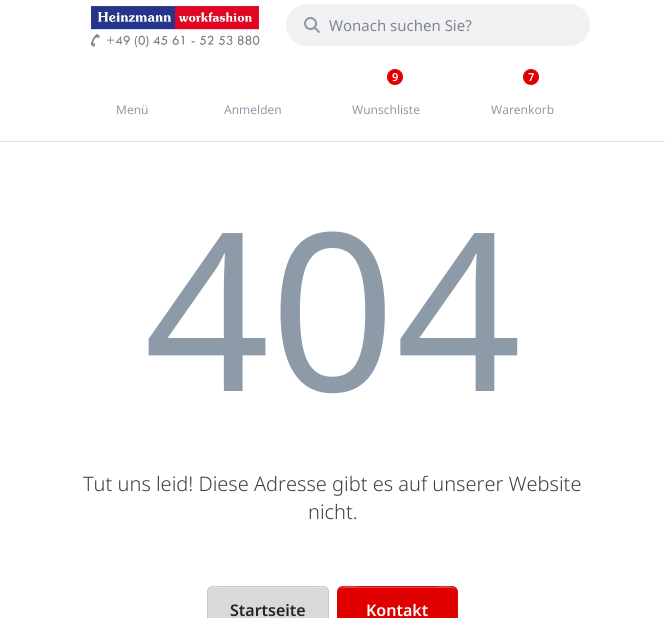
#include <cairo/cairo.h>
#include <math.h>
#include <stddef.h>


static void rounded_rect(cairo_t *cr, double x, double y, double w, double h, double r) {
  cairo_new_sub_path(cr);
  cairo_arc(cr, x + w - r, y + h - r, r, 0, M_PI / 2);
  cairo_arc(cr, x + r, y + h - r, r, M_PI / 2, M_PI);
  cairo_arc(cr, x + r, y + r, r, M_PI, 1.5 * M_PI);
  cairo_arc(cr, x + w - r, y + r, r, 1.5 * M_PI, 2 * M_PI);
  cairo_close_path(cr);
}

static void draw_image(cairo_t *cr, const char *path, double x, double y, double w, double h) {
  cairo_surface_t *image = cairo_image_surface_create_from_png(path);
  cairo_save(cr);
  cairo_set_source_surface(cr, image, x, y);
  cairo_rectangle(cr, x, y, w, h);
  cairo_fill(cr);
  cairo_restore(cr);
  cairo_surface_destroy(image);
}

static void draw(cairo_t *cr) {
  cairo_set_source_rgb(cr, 1, 1, 1);
  cairo_paint(cr);
  cairo_set_source_rgb(cr, 224 / 255.0, 224 / 255.0, 224 / 255.0);
  cairo_rectangle(cr, 0, 141, 665, 1);
  cairo_fill(cr);
  draw_image(cr, "images/1.png", 90, 4, 170, 44);
  cairo_set_source_rgb(cr, 239 / 255.0, 241 / 255.0, 243 / 255.0);
  rounded_rect(cr, 286.5, 4.5, 303, 41, 20.5);
  cairo_fill_preserve(cr);
  cairo_set_line_width(cr, 1);
  cairo_stroke(cr);
  draw_image(cr, "images/2.png", 304, 17, 16, 16);
  cairo_set_source_rgb(cr, 224 / 255.0, 0, 0);
  cairo_arc(cr, 395, 77, 9, 0, 2 * M_PI);
  cairo_fill(cr);
  cairo_arc(cr, 395, 77, 9, 0, 2 * M_PI);
  cairo_set_source_rgb(cr, 1, 1, 1);
  cairo_set_line_width(cr, 2);
  cairo_stroke(cr);
  cairo_set_source_rgb(cr, 224 / 255.0, 0, 0);
  cairo_arc(cr, 531, 77, 9, 0, 2 * M_PI);
  cairo_fill(cr);
  cairo_arc(cr, 531, 77, 9, 0, 2 * M_PI);
  cairo_set_source_rgb(cr, 1, 1, 1);
  cairo_stroke(cr);
  cairo_set_source_rgb(cr, 217 / 255.0, 217 / 255.0, 217 / 255.0);
  rounded_rect(cr, 207, 586, 122, 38, 6);
  cairo_fill(cr);
  cairo_set_source_rgb(cr, 227 / 255.0, 227 / 255.0, 227 / 255.0);
  cairo_new_path(cr);
  cairo_move_to(cr, 213, 588);
  cairo_line_to(cr, 323, 588);
  cairo_curve_to(cr, 326, 588, 328, 590, 328, 593);
  cairo_curve_to(cr, 328, 582, 309, 587, 305, 587);
  cairo_line_to(cr, 231, 587);
  cairo_curve_to(cr, 227, 587, 208, 582, 208, 593);
  cairo_curve_to(cr, 208, 590, 210, 588, 213, 588);
  cairo_close_path(cr);
  cairo_fill(cr);
  rounded_rect(cr, 207.5, 586.5, 121, 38, 5.5);
  cairo_set_source_rgba(cr, 89 / 255.0, 97 / 255.0, 103 / 255.0, 0.15);
  cairo_set_line_width(cr, 1);
  cairo_stroke(cr);
  cairo_set_source_rgb(cr, 224 / 255.0, 0, 0);
  rounded_rect(cr, 337, 586, 121, 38, 6);
  cairo_fill(cr);
  cairo_set_source_rgb(cr, 232 / 255.0, 64 / 255.0, 64 / 255.0);
  cairo_new_path(cr);
  cairo_move_to(cr, 343, 588);
  cairo_line_to(cr, 452, 588);
  cairo_curve_to(cr, 455, 588, 457, 590, 457, 593);
  cairo_curve_to(cr, 457, 582, 438, 587, 434, 587);
  cairo_line_to(cr, 361, 587);
  cairo_curve_to(cr, 357, 587, 338, 582, 338, 593);
  cairo_curve_to(cr, 338, 590, 340, 588, 343, 588);
  cairo_close_path(cr);
  cairo_fill(cr);
  rounded_rect(cr, 337.5, 586.5, 120, 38, 5.5);
  cairo_set_source_rgba(cr, 89 / 255.0, 97 / 255.0, 103 / 255.0, 0.15);
  cairo_stroke(cr);
  cairo_select_font_face(cr, "Noto Sans", CAIRO_FONT_SLANT_NORMAL, CAIRO_FONT_WEIGHT_NORMAL);
  cairo_set_font_size(cr, 15);
  cairo_set_source_rgb(cr, 130 / 255.0, 134 / 255.0, 139 / 255.0);
  cairo_move_to(cr, 329, 31);
  cairo_show_text(cr, "Wonach suchen Sie?");
  cairo_set_font_size(cr, 12);
  cairo_set_source_rgb(cr, 141 / 255.0, 155 / 255.0, 169 / 255.0);
  cairo_move_to(cr, 116, 114);
  cairo_show_text(cr, "Menü");
  cairo_move_to(cr, 224, 114);
  cairo_show_text(cr, "Anmelden");
  cairo_select_font_face(cr, "Noto Sans SemiBold", CAIRO_FONT_SLANT_NORMAL, CAIRO_FONT_WEIGHT_NORMAL);
  cairo_set_font_size(cr, 11);
  cairo_set_source_rgb(cr, 1, 1, 1);
  cairo_move_to(cr, 392, 81);
  cairo_show_text(cr, "9");
  cairo_select_font_face(cr, "Noto Sans", CAIRO_FONT_SLANT_NORMAL, CAIRO_FONT_WEIGHT_NORMAL);
  cairo_set_font_size(cr, 12);
  cairo_set_source_rgb(cr, 141 / 255.0, 155 / 255.0, 169 / 255.0);
  cairo_move_to(cr, 352, 114);
  cairo_show_text(cr, "Wunschliste");
  cairo_select_font_face(cr, "Noto Sans SemiBold", CAIRO_FONT_SLANT_NORMAL, CAIRO_FONT_WEIGHT_NORMAL);
  cairo_set_font_size(cr, 11);
  cairo_set_source_rgb(cr, 1, 1, 1);
  cairo_move_to(cr, 528, 81);
  cairo_show_text(cr, "7");
  cairo_select_font_face(cr, "Noto Sans", CAIRO_FONT_SLANT_NORMAL, CAIRO_FONT_WEIGHT_NORMAL);
  cairo_set_font_size(cr, 12);
  cairo_set_source_rgb(cr, 141 / 255.0, 155 / 255.0, 169 / 255.0);
  cairo_move_to(cr, 491, 114);
  cairo_show_text(cr, "Warenkorb");
  cairo_set_font_size(cr, 220);
  cairo_move_to(cr, 144, 391);
  cairo_show_text(cr, "404");
  cairo_select_font_face(cr, "Noto Sans Light", CAIRO_FONT_SLANT_NORMAL, CAIRO_FONT_WEIGHT_NORMAL);
  cairo_set_font_size(cr, 20);
  cairo_set_source_rgb(cr, 57 / 255.0, 63 / 255.0, 70 / 255.0);
  cairo_move_to(cr, 83, 491);
  cairo_show_text(cr, "Tut uns leid! Diese Adresse gibt es auf unserer Website");
  cairo_move_to(cr, 308, 519);
  cairo_show_text(cr, "nicht.");
  cairo_select_font_face(cr, "Noto Sans SemiBold", CAIRO_FONT_SLANT_NORMAL, CAIRO_FONT_WEIGHT_NORMAL);
  cairo_set_font_size(cr, 16);
  cairo_set_source_rgb(cr, 34 / 255.0, 38 / 255.0, 42 / 255.0);
  cairo_move_to(cr, 230, 616);
  cairo_show_text(cr, "Startseite");
  cairo_set_source_rgb(cr, 1, 1, 1);
  cairo_move_to(cr, 366, 616);
  cairo_show_text(cr, "Kontakt");
}

int main(void) {
  cairo_surface_t *surface = cairo_image_surface_create(CAIRO_FORMAT_RGB24, 665, 618);
  cairo_t *cr = cairo_create(surface);
  cairo_font_options_t *options = cairo_font_options_create();
  cairo_font_options_set_hint_metrics(options, CAIRO_HINT_METRICS_OFF);
  cairo_font_options_set_hint_style(options, CAIRO_HINT_STYLE_NONE);
  cairo_set_font_options(cr, options);
  cairo_set_miter_limit(cr, 4);
  draw(cr);
  cairo_surface_write_to_png(surface, "out.png");
  cairo_font_options_destroy(options);
  cairo_destroy(cr);
  cairo_surface_destroy(surface);
  return 0;
}
